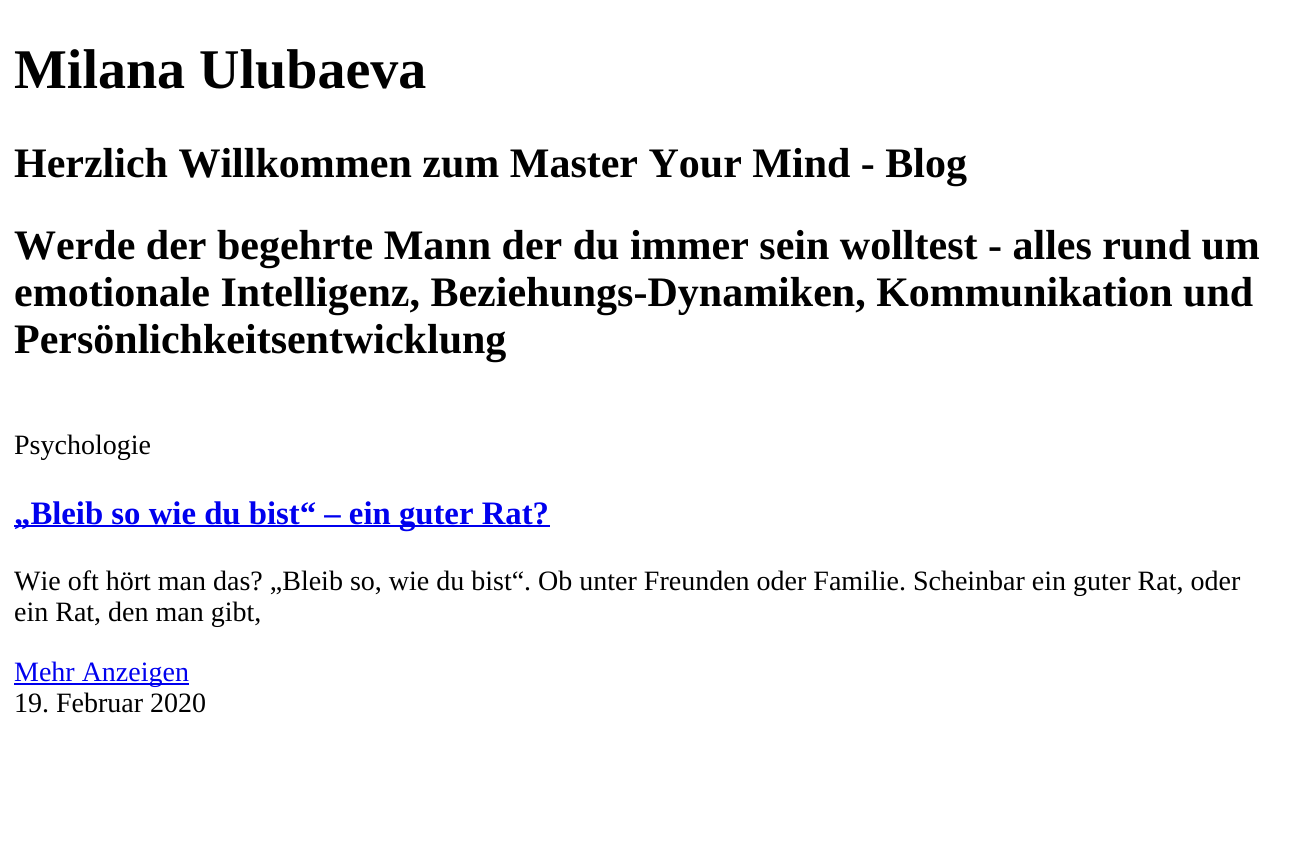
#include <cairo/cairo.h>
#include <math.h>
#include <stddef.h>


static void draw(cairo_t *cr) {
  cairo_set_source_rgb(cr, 1, 1, 1);
  cairo_paint(cr);
  cairo_set_source_rgb(cr, 0, 0, 238 / 255.0);
  cairo_rectangle(cr, 14, 525, 536, 2);
  cairo_fill(cr);
  cairo_rectangle(cr, 14, 683, 175, 2);
  cairo_fill(cr);
  cairo_select_font_face(cr, "Liberation Serif", CAIRO_FONT_SLANT_NORMAL, CAIRO_FONT_WEIGHT_BOLD);
  cairo_set_font_size(cr, 56);
  cairo_set_source_rgb(cr, 0, 0, 0);
  cairo_move_to(cr, 14, 88);
  cairo_show_text(cr, "Milana Ulubaeva");
  cairo_set_font_size(cr, 42);
  cairo_move_to(cr, 14, 177);
  cairo_show_text(cr, "Herzlich Willkommen zum Master Your Mind - Blog");
  cairo_move_to(cr, 14, 259);
  cairo_show_text(cr, "Werde der begehrte Mann der du immer sein wolltest - alles rund um");
  cairo_move_to(cr, 14, 306);
  cairo_show_text(cr, "emotionale Intelligenz, Beziehungs-Dynamiken, Kommunikation und");
  cairo_move_to(cr, 14, 353);
  cairo_show_text(cr, "Persönlichkeitsentwicklung");
  cairo_select_font_face(cr, "Liberation Serif", CAIRO_FONT_SLANT_NORMAL, CAIRO_FONT_WEIGHT_NORMAL);
  cairo_set_font_size(cr, 28);
  cairo_move_to(cr, 14, 454);
  cairo_show_text(cr, "Psychologie");
  cairo_select_font_face(cr, "Liberation Serif", CAIRO_FONT_SLANT_NORMAL, CAIRO_FONT_WEIGHT_BOLD);
  cairo_set_font_size(cr, 32.75);
  cairo_set_source_rgb(cr, 0, 0, 238 / 255.0);
  cairo_move_to(cr, 14, 524);
  cairo_show_text(cr, "„Bleib so wie du bist“ – ein guter Rat?");
  cairo_select_font_face(cr, "Liberation Serif", CAIRO_FONT_SLANT_NORMAL, CAIRO_FONT_WEIGHT_NORMAL);
  cairo_set_font_size(cr, 28);
  cairo_set_source_rgb(cr, 0, 0, 0);
  cairo_move_to(cr, 14, 590);
  cairo_show_text(cr, "Wie oft hört man das? „Bleib so, wie du bist“. Ob unter Freunden oder Familie. Scheinbar ein guter Rat, oder");
  cairo_move_to(cr, 14, 621);
  cairo_show_text(cr, "ein Rat, den man gibt,");
  cairo_set_source_rgb(cr, 0, 0, 238 / 255.0);
  cairo_move_to(cr, 14, 681);
  cairo_show_text(cr, "Mehr Anzeigen");
  cairo_set_source_rgb(cr, 0, 0, 0);
  cairo_move_to(cr, 14, 712);
  cairo_show_text(cr, "19. Februar 2020");
}

int main(void) {
  cairo_surface_t *surface = cairo_image_surface_create(CAIRO_FORMAT_RGB24, 1289, 854);
  cairo_t *cr = cairo_create(surface);
  cairo_font_options_t *options = cairo_font_options_create();
  cairo_font_options_set_hint_metrics(options, CAIRO_HINT_METRICS_OFF);
  cairo_font_options_set_hint_style(options, CAIRO_HINT_STYLE_NONE);
  cairo_set_font_options(cr, options);
  cairo_set_miter_limit(cr, 4);
  draw(cr);
  cairo_surface_write_to_png(surface, "out.png");
  cairo_font_options_destroy(options);
  cairo_destroy(cr);
  cairo_surface_destroy(surface);
  return 0;
}
